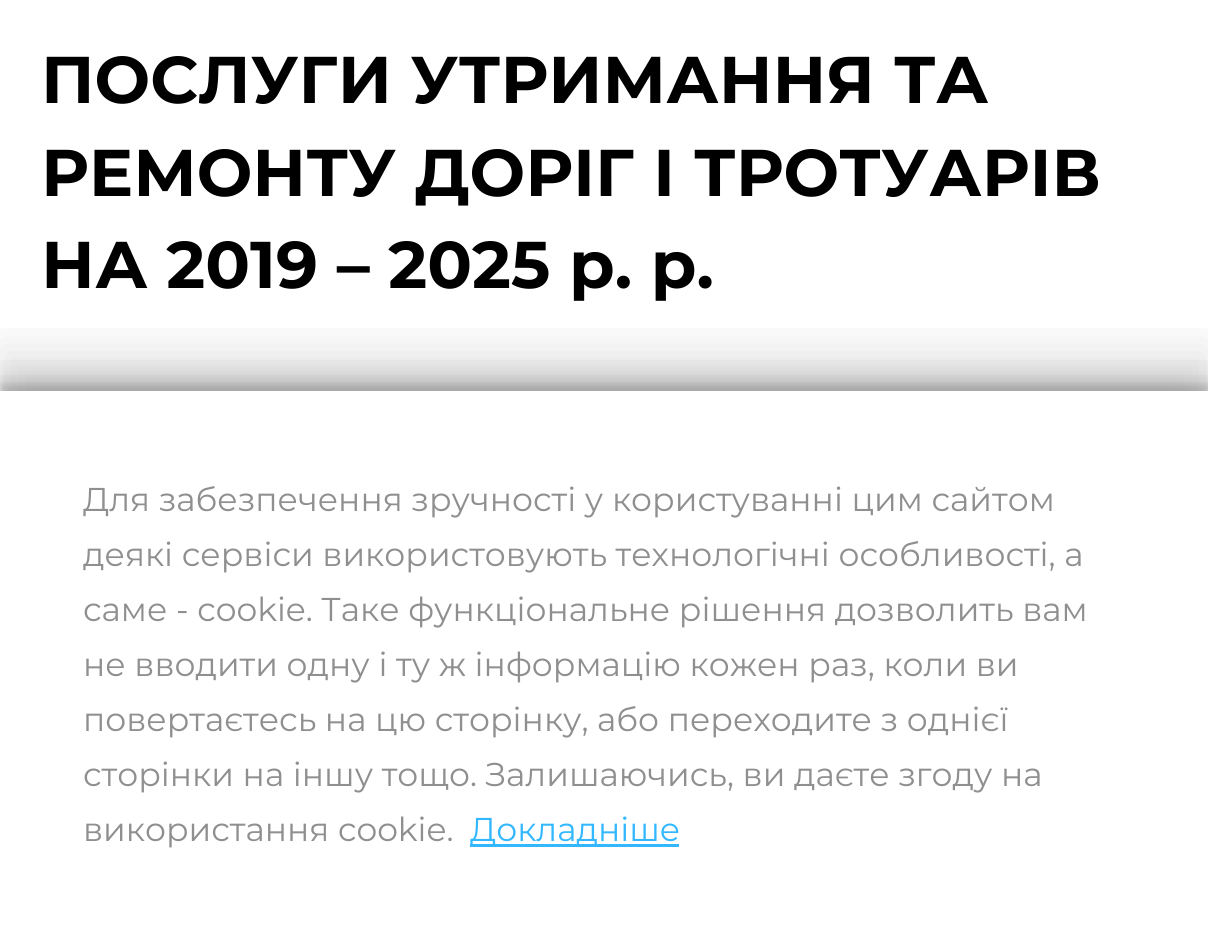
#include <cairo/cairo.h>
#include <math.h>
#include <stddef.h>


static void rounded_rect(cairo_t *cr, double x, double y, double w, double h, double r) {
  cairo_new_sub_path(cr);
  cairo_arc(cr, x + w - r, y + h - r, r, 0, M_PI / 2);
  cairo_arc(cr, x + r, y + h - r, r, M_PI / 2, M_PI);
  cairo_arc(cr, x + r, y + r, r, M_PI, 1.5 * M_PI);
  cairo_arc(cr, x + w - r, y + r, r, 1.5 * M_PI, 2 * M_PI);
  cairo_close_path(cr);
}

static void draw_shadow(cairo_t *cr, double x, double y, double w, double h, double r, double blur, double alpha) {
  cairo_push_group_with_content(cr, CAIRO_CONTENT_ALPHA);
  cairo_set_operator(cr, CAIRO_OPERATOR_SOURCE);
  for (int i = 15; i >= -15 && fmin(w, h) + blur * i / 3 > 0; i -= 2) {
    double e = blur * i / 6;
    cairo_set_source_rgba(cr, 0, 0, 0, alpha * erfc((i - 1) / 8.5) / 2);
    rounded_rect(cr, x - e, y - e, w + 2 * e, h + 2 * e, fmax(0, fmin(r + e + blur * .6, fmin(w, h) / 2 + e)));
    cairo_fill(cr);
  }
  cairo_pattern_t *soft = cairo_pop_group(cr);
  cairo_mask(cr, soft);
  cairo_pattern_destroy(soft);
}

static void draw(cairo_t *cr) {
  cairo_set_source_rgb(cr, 1, 1, 1);
  cairo_paint(cr);
  cairo_save(cr);
  cairo_rectangle(cr, 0, 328, 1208, 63);
  cairo_clip(cr);
  cairo_set_source_rgb(cr, 0, 0, 0);
  draw_shadow(cr, 0, 347, 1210, 550, 0, 22, 0.1);
  cairo_restore(cr);
  cairo_save(cr);
  cairo_rectangle(cr, 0, 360, 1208, 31);
  cairo_clip(cr);
  cairo_set_source_rgb(cr, 0, 0, 0);
  draw_shadow(cr, 0, 369, 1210, 550, 0, 11, 0.1);
  cairo_restore(cr);
  cairo_save(cr);
  cairo_rectangle(cr, 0, 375, 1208, 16);
  cairo_clip(cr);
  cairo_set_source_rgb(cr, 0, 0, 0);
  draw_shadow(cr, 0, 380, 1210, 550, 0, 5.5, 0.1);
  cairo_restore(cr);
  cairo_save(cr);
  cairo_rectangle(cr, 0, 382, 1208, 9);
  cairo_clip(cr);
  cairo_set_source_rgb(cr, 0, 0, 0);
  draw_shadow(cr, 0, 385, 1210, 550, 0, 3, 0.1);
  cairo_restore(cr);
  cairo_set_source_rgb(cr, 51 / 255.0, 184 / 255.0, 1);
  cairo_rectangle(cr, 470, 844, 209, 3);
  cairo_fill(cr);
  cairo_select_font_face(cr, "Montserrat", CAIRO_FONT_SLANT_NORMAL, CAIRO_FONT_WEIGHT_BOLD);
  cairo_set_font_size(cr, 66);
  cairo_set_source_rgb(cr, 0, 0, 0);
  cairo_move_to(cr, 41, 103);
  cairo_show_text(cr, "ПОСЛУГИ УТРИМАННЯ ТА");
  cairo_move_to(cr, 41, 196);
  cairo_show_text(cr, "РЕМОНТУ ДОРІГ І ТРОТУАРІВ");
  cairo_move_to(cr, 41, 288);
  cairo_show_text(cr, "НА 2019 – 2025 р. р.");
  cairo_select_font_face(cr, "Montserrat", CAIRO_FONT_SLANT_NORMAL, CAIRO_FONT_WEIGHT_NORMAL);
  cairo_set_font_size(cr, 33);
  cairo_set_source_rgb(cr, 143 / 255.0, 143 / 255.0, 143 / 255.0);
  cairo_move_to(cr, 83, 511);
  cairo_show_text(cr, "Для забезпечення зручності у користуванні цим сайтом");
  cairo_move_to(cr, 83, 566);
  cairo_show_text(cr, "деякі сервіси використовують технологічні особливості, а");
  cairo_move_to(cr, 83, 621);
  cairo_show_text(cr, "саме - cookie. Таке функціональне рішення дозволить вам");
  cairo_move_to(cr, 83, 676);
  cairo_show_text(cr, "не вводити одну і ту ж інформацію кожен раз, коли ви");
  cairo_move_to(cr, 83, 731);
  cairo_show_text(cr, "повертаєтесь на цю сторінку, або переходите з однієї");
  cairo_move_to(cr, 83, 786);
  cairo_show_text(cr, "сторінки на іншу тощо. Залишаючись, ви даєте згоду на");
  cairo_move_to(cr, 83, 841);
  cairo_show_text(cr, "використання cookie.");
  cairo_set_source_rgb(cr, 51 / 255.0, 184 / 255.0, 1);
  cairo_move_to(cr, 470, 841);
  cairo_show_text(cr, "Докладніше");
}

int main(void) {
  cairo_surface_t *surface = cairo_image_surface_create(CAIRO_FORMAT_RGB24, 1208, 939);
  cairo_t *cr = cairo_create(surface);
  cairo_font_options_t *options = cairo_font_options_create();
  cairo_font_options_set_hint_metrics(options, CAIRO_HINT_METRICS_OFF);
  cairo_font_options_set_hint_style(options, CAIRO_HINT_STYLE_NONE);
  cairo_set_font_options(cr, options);
  cairo_set_miter_limit(cr, 4);
  draw(cr);
  cairo_surface_write_to_png(surface, "out.png");
  cairo_font_options_destroy(options);
  cairo_destroy(cr);
  cairo_surface_destroy(surface);
  return 0;
}
